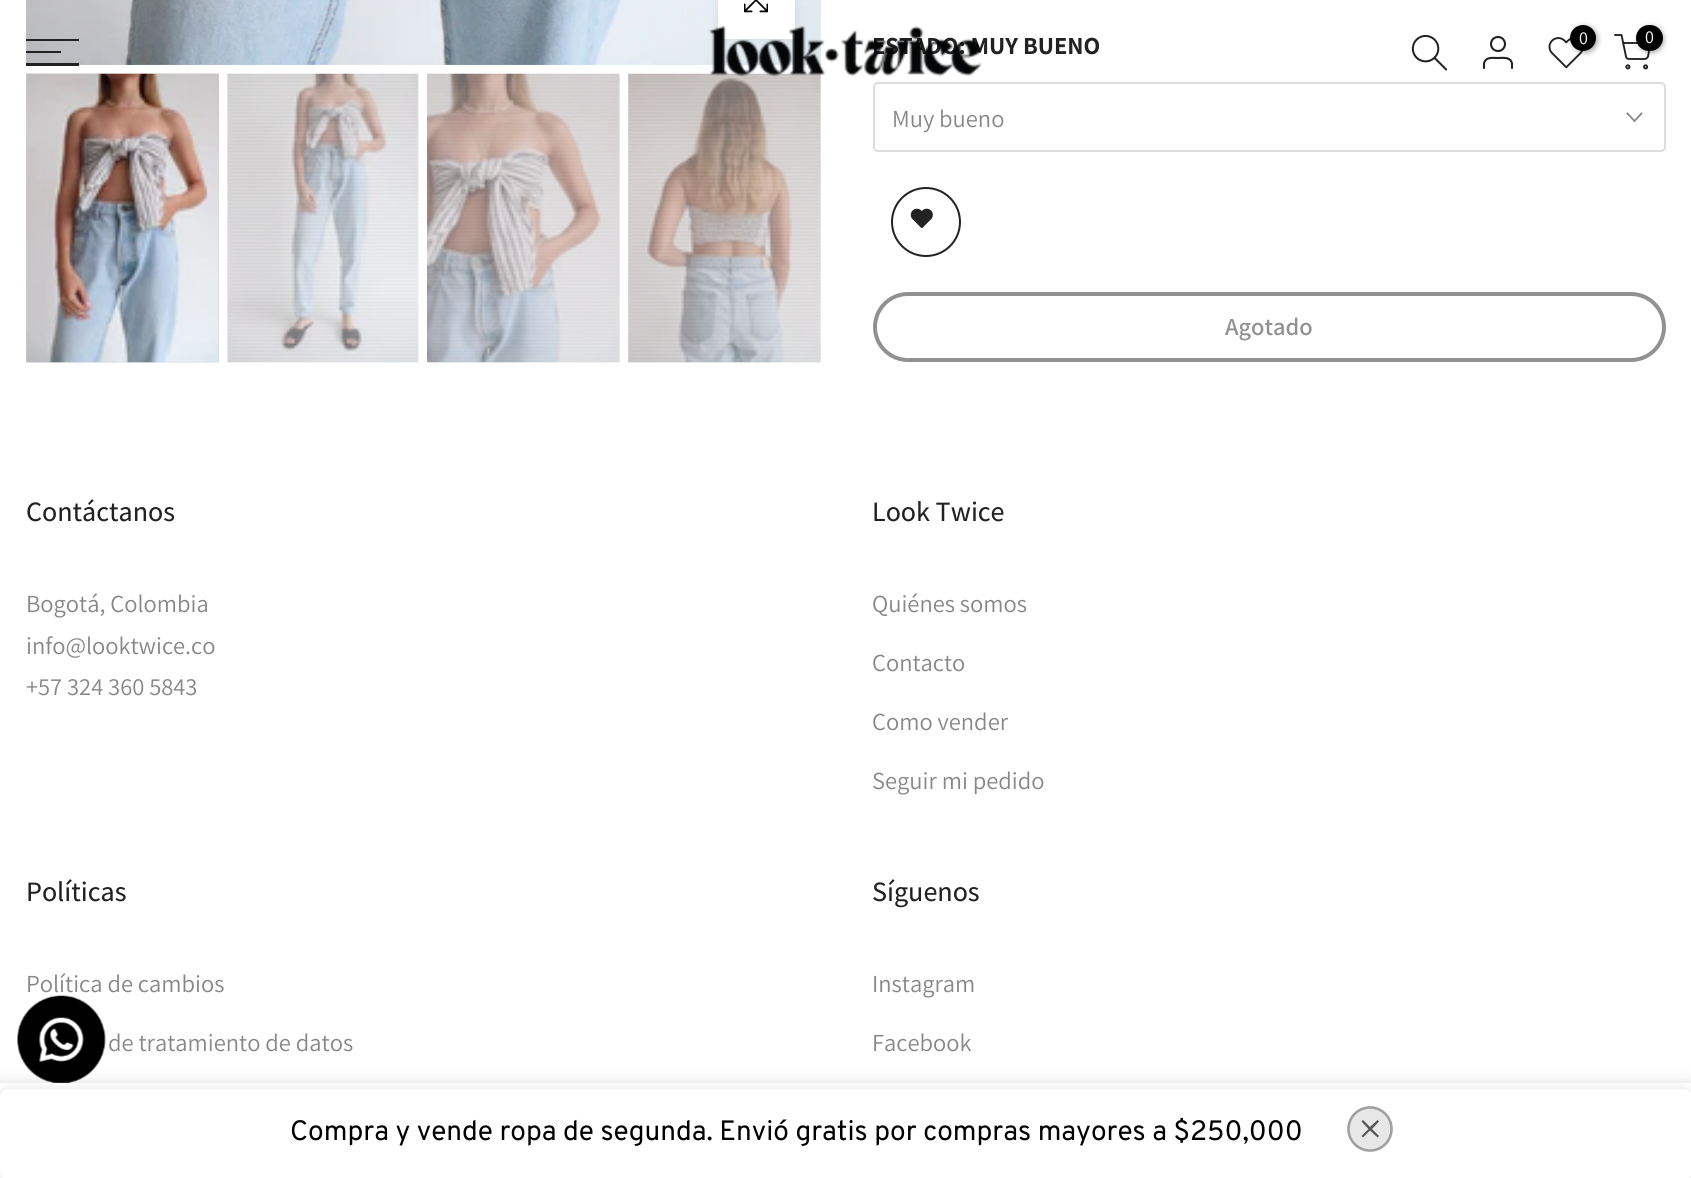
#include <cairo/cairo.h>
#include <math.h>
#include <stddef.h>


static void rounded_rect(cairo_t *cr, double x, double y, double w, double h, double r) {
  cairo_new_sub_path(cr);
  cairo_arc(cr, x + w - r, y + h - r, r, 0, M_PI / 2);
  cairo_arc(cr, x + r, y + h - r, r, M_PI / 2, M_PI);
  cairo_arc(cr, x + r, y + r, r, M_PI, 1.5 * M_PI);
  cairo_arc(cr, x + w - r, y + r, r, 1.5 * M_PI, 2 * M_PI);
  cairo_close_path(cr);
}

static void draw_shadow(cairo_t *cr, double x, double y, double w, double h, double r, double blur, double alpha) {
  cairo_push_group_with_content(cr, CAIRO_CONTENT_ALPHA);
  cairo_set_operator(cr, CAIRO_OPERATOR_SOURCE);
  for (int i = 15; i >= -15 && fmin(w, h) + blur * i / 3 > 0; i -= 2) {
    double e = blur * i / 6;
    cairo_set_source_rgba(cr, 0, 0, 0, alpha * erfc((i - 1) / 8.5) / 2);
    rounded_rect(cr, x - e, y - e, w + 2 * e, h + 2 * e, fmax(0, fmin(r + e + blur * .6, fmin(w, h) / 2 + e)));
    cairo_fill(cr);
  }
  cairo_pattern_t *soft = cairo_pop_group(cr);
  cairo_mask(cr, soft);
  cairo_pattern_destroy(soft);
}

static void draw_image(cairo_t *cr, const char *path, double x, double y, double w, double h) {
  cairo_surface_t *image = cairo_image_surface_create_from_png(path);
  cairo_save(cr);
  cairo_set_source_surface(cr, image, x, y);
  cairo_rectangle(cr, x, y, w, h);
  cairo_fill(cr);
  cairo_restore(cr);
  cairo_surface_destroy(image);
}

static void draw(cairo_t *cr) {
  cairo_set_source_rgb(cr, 1, 1, 1);
  cairo_paint(cr);
  draw_image(cr, "images/1.png", 26, 0, 795, 65);
  cairo_set_source_rgb(cr, 0, 0, 0);
  draw_shadow(cr, 718, -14, 77, 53, 0, 4.5, 0.09);
  cairo_set_source_rgb(cr, 1, 1, 1);
  cairo_rectangle(cr, 718, 0, 77, 39);
  cairo_fill(cr);
  draw_image(cr, "images/2.png", 744, 0, 24, 13);
  draw_image(cr, "images/3.png", 26, 73, 193, 290);
  draw_image(cr, "images/4.png", 26, 73, 193, 290);
  draw_image(cr, "images/5.png", 227, 73, 192, 290);
  draw_image(cr, "images/6.png", 227, 73, 192, 290);
  draw_image(cr, "images/7.png", 427, 73, 193, 290);
  draw_image(cr, "images/8.png", 427, 73, 193, 290);
  draw_image(cr, "images/9.png", 628, 73, 193, 290);
  draw_image(cr, "images/10.png", 628, 73, 193, 290);
  rounded_rect(cr, 874, 83, 791, 68, 4);
  cairo_set_source_rgb(cr, 221 / 255.0, 221 / 255.0, 221 / 255.0);
  cairo_stroke(cr);
  cairo_new_path(cr);
  cairo_move_to(cr, 1641.5, 113.5);
  cairo_line_to(cr, 1634.5, 121);
  cairo_line_to(cr, 1627.5, 113.5);
  cairo_set_source_rgb(cr, 135 / 255.0, 135 / 255.0, 135 / 255.0);
  cairo_set_line_width(cr, 1.8);
  cairo_set_line_cap(cr, CAIRO_LINE_CAP_SQUARE);
  cairo_stroke(cr);
  cairo_arc(cr, 926, 222, 34, 0, 2 * M_PI);
  cairo_set_source_rgb(cr, 34 / 255.0, 34 / 255.0, 34 / 255.0);
  cairo_set_line_width(cr, 2);
  cairo_set_line_cap(cr, CAIRO_LINE_CAP_BUTT);
  cairo_stroke(cr);
  draw_image(cr, "images/11.png", 910, 208, 23, 21);
  rounded_rect(cr, 875, 294, 789, 66, 33);
  cairo_set_source_rgb(cr, 145 / 255.0, 145 / 255.0, 145 / 255.0);
  cairo_set_line_width(cr, 4);
  cairo_stroke(cr);
  cairo_set_source_rgb(cr, 34 / 255.0, 34 / 255.0, 34 / 255.0);
  cairo_rectangle(cr, 26, 39, 53, 2);
  cairo_fill(cr);
  cairo_rectangle(cr, 26, 51, 35, 2);
  cairo_fill(cr);
  cairo_rectangle(cr, 26, 63, 53, 3);
  cairo_fill(cr);
  draw_image(cr, "images/13.png", 1411, 34, 37, 37);
  cairo_arc(cr, 1498, 44, 7, 0, 2 * M_PI);
  cairo_set_line_width(cr, 2.1);
  cairo_stroke(cr);
  cairo_new_path(cr);
  cairo_move_to(cr, 1512, 68);
  cairo_line_to(cr, 1512, 63.5);
  cairo_curve_to(cr, 1510.5, 56.5, 1503, 58, 1498, 58);
  cairo_curve_to(cr, 1493, 58, 1485.5, 56.5, 1484, 63.5);
  cairo_line_to(cr, 1484, 68);
  cairo_set_line_cap(cr, CAIRO_LINE_CAP_ROUND);
  cairo_set_line_join(cr, CAIRO_LINE_JOIN_ROUND);
  cairo_stroke(cr);
  draw_image(cr, "images/14.png", 1548, 37, 36, 32);
  cairo_set_source_rgb(cr, 0, 0, 0);
  draw_shadow(cr, 1572, 26, 26, 27, 13, 2.5, 0.3);
  cairo_set_source_rgb(cr, 0, 0, 0);
  cairo_arc(cr, 1583, 38, 13, 0, 2 * M_PI);
  cairo_fill(cr);
  cairo_new_path(cr);
  cairo_move_to(cr, 1615, 35);
  cairo_line_to(cr, 1621.5, 35);
  cairo_line_to(cr, 1626, 56.5);
  cairo_curve_to(cr, 1626, 58, 1627.5, 59, 1629, 59);
  cairo_line_to(cr, 1644.5, 59);
  cairo_curve_to(cr, 1646, 59, 1647.5, 58, 1648, 56.5);
  cairo_line_to(cr, 1650.5, 43);
  cairo_line_to(cr, 1623, 43);
  cairo_set_source_rgb(cr, 34 / 255.0, 34 / 255.0, 34 / 255.0);
  cairo_set_line_width(cr, 1.9);
  cairo_stroke(cr);
  cairo_set_source_rgb(cr, 0, 0, 0);
  draw_shadow(cr, 1638, 26, 26, 27, 13, 2.5, 0.3);
  cairo_set_source_rgb(cr, 0, 0, 0);
  rounded_rect(cr, 1636, 25, 27, 26, 13);
  cairo_fill(cr);
  cairo_arc(cr, 1627.9, 66.9, 1.6, 0, 2 * M_PI);
  cairo_set_source_rgb(cr, 34 / 255.0, 34 / 255.0, 34 / 255.0);
  cairo_set_line_cap(cr, CAIRO_LINE_CAP_BUTT);
  cairo_set_line_join(cr, CAIRO_LINE_JOIN_MITER);
  cairo_stroke(cr);
  cairo_arc(cr, 1645.6, 66.9, 1.6, 0, 2 * M_PI);
  cairo_stroke(cr);
  draw_image(cr, "images/15.png", 17, 995, 89, 88);
  cairo_set_source_rgb(cr, 0, 0, 0);
  draw_shadow(cr, 0, 1083, 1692, 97, 0, 8, 0.12);
  cairo_set_source_rgb(cr, 1, 1, 1);
  cairo_rectangle(cr, 0, 1083, 1691, 95);
  cairo_fill(cr);
  cairo_save(cr);
  cairo_set_fill_rule(cr, CAIRO_FILL_RULE_EVEN_ODD);
  cairo_new_path(cr);
  cairo_move_to(cr, 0, 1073);
  cairo_line_to(cr, 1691, 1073);
  cairo_line_to(cr, 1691, 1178);
  cairo_line_to(cr, 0, 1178);
  cairo_close_path(cr);
  cairo_move_to(cr, 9, 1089);
  cairo_line_to(cr, 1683, 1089);
  cairo_curve_to(cr, 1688, 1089, 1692, 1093, 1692, 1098);
  cairo_line_to(cr, 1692, 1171);
  cairo_curve_to(cr, 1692, 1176, 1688, 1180, 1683, 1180);
  cairo_line_to(cr, 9, 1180);
  cairo_curve_to(cr, 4, 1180, 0, 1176, 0, 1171);
  cairo_line_to(cr, 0, 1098);
  cairo_curve_to(cr, 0, 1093, 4, 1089, 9, 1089);
  cairo_close_path(cr);
  cairo_clip(cr);
  cairo_set_source_rgb(cr, 0, 0, 0);
  draw_shadow(cr, 0, 1089, 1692, 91, 9, 5, 0.12);
  cairo_restore(cr);
  cairo_set_source_rgb(cr, 231 / 255.0, 231 / 255.0, 231 / 255.0);
  cairo_arc(cr, 1370, 1129, 23, 0, 2 * M_PI);
  cairo_fill(cr);
  cairo_arc(cr, 1370, 1129, 21.5, 0, 2 * M_PI);
  cairo_set_source_rgba(cr, 0, 0, 0, 0.31);
  cairo_set_line_width(cr, 2.5);
  cairo_stroke(cr);
  cairo_set_source_rgb(cr, 86 / 255.0, 86 / 255.0, 86 / 255.0);
  cairo_new_path(cr);
  cairo_move_to(cr, 1379, 1121.5);
  cairo_line_to(cr, 1377.5, 1120);
  cairo_line_to(cr, 1370, 1127);
  cairo_line_to(cr, 1363, 1120);
  cairo_line_to(cr, 1361.5, 1121.5);
  cairo_line_to(cr, 1368.5, 1129);
  cairo_line_to(cr, 1361.5, 1136);
  cairo_line_to(cr, 1363, 1137.5);
  cairo_line_to(cr, 1370, 1130.5);
  cairo_line_to(cr, 1377.5, 1137.5);
  cairo_line_to(cr, 1379, 1136);
  cairo_line_to(cr, 1372, 1129);
  cairo_close_path(cr);
  cairo_fill(cr);
  cairo_select_font_face(cr, "Assistant", CAIRO_FONT_SLANT_NORMAL, CAIRO_FONT_WEIGHT_BOLD);
  cairo_set_font_size(cr, 24.5);
  cairo_set_source_rgb(cr, 34 / 255.0, 34 / 255.0, 34 / 255.0);
  cairo_move_to(cr, 872, 54);
  cairo_show_text(cr, "ESTADO: MUY BUENO");
  cairo_select_font_face(cr, "Assistant", CAIRO_FONT_SLANT_NORMAL, CAIRO_FONT_WEIGHT_NORMAL);
  cairo_set_source_rgb(cr, 135 / 255.0, 135 / 255.0, 135 / 255.0);
  cairo_move_to(cr, 892, 127);
  cairo_show_text(cr, "Muy bueno");
  cairo_select_font_face(cr, "Assistant SemiBold", CAIRO_FONT_SLANT_NORMAL, CAIRO_FONT_WEIGHT_NORMAL);
  cairo_set_source_rgb(cr, 145 / 255.0, 145 / 255.0, 145 / 255.0);
  cairo_move_to(cr, 1225, 335);
  cairo_show_text(cr, "Agotado");
  draw_image(cr, "images/12.png", 709, 25, 273, 52);
  cairo_select_font_face(cr, "Assistant", CAIRO_FONT_SLANT_NORMAL, CAIRO_FONT_WEIGHT_NORMAL);
  cairo_set_font_size(cr, 18);
  cairo_set_source_rgb(cr, 1, 1, 1);
  cairo_move_to(cr, 1579, 44);
  cairo_show_text(cr, "0");
  cairo_move_to(cr, 1645, 43);
  cairo_show_text(cr, "0");
  cairo_select_font_face(cr, "Assistant Medium", CAIRO_FONT_SLANT_NORMAL, CAIRO_FONT_WEIGHT_NORMAL);
  cairo_set_font_size(cr, 28);
  cairo_set_source_rgb(cr, 34 / 255.0, 34 / 255.0, 34 / 255.0);
  cairo_move_to(cr, 26, 521);
  cairo_show_text(cr, "Contáctanos");
  cairo_select_font_face(cr, "Assistant", CAIRO_FONT_SLANT_NORMAL, CAIRO_FONT_WEIGHT_NORMAL);
  cairo_set_font_size(cr, 24.5);
  cairo_set_source_rgb(cr, 135 / 255.0, 135 / 255.0, 135 / 255.0);
  cairo_move_to(cr, 26, 612);
  cairo_show_text(cr, "Bogotá, Colombia");
  cairo_move_to(cr, 26, 654);
  cairo_show_text(cr, "info@looktwice.co");
  cairo_move_to(cr, 26, 695);
  cairo_show_text(cr, "+57 324 360 5843");
  cairo_select_font_face(cr, "Assistant Medium", CAIRO_FONT_SLANT_NORMAL, CAIRO_FONT_WEIGHT_NORMAL);
  cairo_set_font_size(cr, 28);
  cairo_set_source_rgb(cr, 34 / 255.0, 34 / 255.0, 34 / 255.0);
  cairo_move_to(cr, 872, 521);
  cairo_show_text(cr, "Look Twice");
  cairo_select_font_face(cr, "Assistant", CAIRO_FONT_SLANT_NORMAL, CAIRO_FONT_WEIGHT_NORMAL);
  cairo_set_font_size(cr, 24.5);
  cairo_set_source_rgb(cr, 135 / 255.0, 135 / 255.0, 135 / 255.0);
  cairo_move_to(cr, 872, 612);
  cairo_show_text(cr, "Quiénes somos");
  cairo_move_to(cr, 872, 671);
  cairo_show_text(cr, "Contacto");
  cairo_move_to(cr, 872, 730);
  cairo_show_text(cr, "Como vender");
  cairo_move_to(cr, 872, 789);
  cairo_show_text(cr, "Seguir mi pedido");
  cairo_select_font_face(cr, "Assistant Medium", CAIRO_FONT_SLANT_NORMAL, CAIRO_FONT_WEIGHT_NORMAL);
  cairo_set_font_size(cr, 28);
  cairo_set_source_rgb(cr, 34 / 255.0, 34 / 255.0, 34 / 255.0);
  cairo_move_to(cr, 26, 901);
  cairo_show_text(cr, "Políticas");
  cairo_select_font_face(cr, "Assistant", CAIRO_FONT_SLANT_NORMAL, CAIRO_FONT_WEIGHT_NORMAL);
  cairo_set_font_size(cr, 24.5);
  cairo_set_source_rgb(cr, 135 / 255.0, 135 / 255.0, 135 / 255.0);
  cairo_move_to(cr, 26, 992);
  cairo_show_text(cr, "Política de cambios");
  cairo_move_to(cr, 108, 1051);
  cairo_show_text(cr, "de tratamiento de datos");
  cairo_select_font_face(cr, "Assistant Medium", CAIRO_FONT_SLANT_NORMAL, CAIRO_FONT_WEIGHT_NORMAL);
  cairo_set_font_size(cr, 28);
  cairo_set_source_rgb(cr, 34 / 255.0, 34 / 255.0, 34 / 255.0);
  cairo_move_to(cr, 872, 901);
  cairo_show_text(cr, "Síguenos");
  cairo_select_font_face(cr, "Assistant", CAIRO_FONT_SLANT_NORMAL, CAIRO_FONT_WEIGHT_NORMAL);
  cairo_set_font_size(cr, 24.5);
  cairo_set_source_rgb(cr, 135 / 255.0, 135 / 255.0, 135 / 255.0);
  cairo_move_to(cr, 872, 992);
  cairo_show_text(cr, "Instagram");
  cairo_move_to(cr, 872, 1051);
  cairo_show_text(cr, "Facebook");
  cairo_select_font_face(cr, "Overpass", CAIRO_FONT_SLANT_NORMAL, CAIRO_FONT_WEIGHT_NORMAL);
  cairo_set_font_size(cr, 28);
  cairo_set_source_rgb(cr, 0, 0, 0);
  cairo_move_to(cr, 290, 1140);
  cairo_show_text(cr, "Compra y vende ropa de segunda. Envió gratis por compras mayores a $250,000");
}

int main(void) {
  cairo_surface_t *surface = cairo_image_surface_create(CAIRO_FORMAT_RGB24, 1691, 1178);
  cairo_t *cr = cairo_create(surface);
  cairo_font_options_t *options = cairo_font_options_create();
  cairo_font_options_set_hint_metrics(options, CAIRO_HINT_METRICS_OFF);
  cairo_font_options_set_hint_style(options, CAIRO_HINT_STYLE_NONE);
  cairo_set_font_options(cr, options);
  cairo_set_miter_limit(cr, 4);
  draw(cr);
  cairo_surface_write_to_png(surface, "out.png");
  cairo_font_options_destroy(options);
  cairo_destroy(cr);
  cairo_surface_destroy(surface);
  return 0;
}
